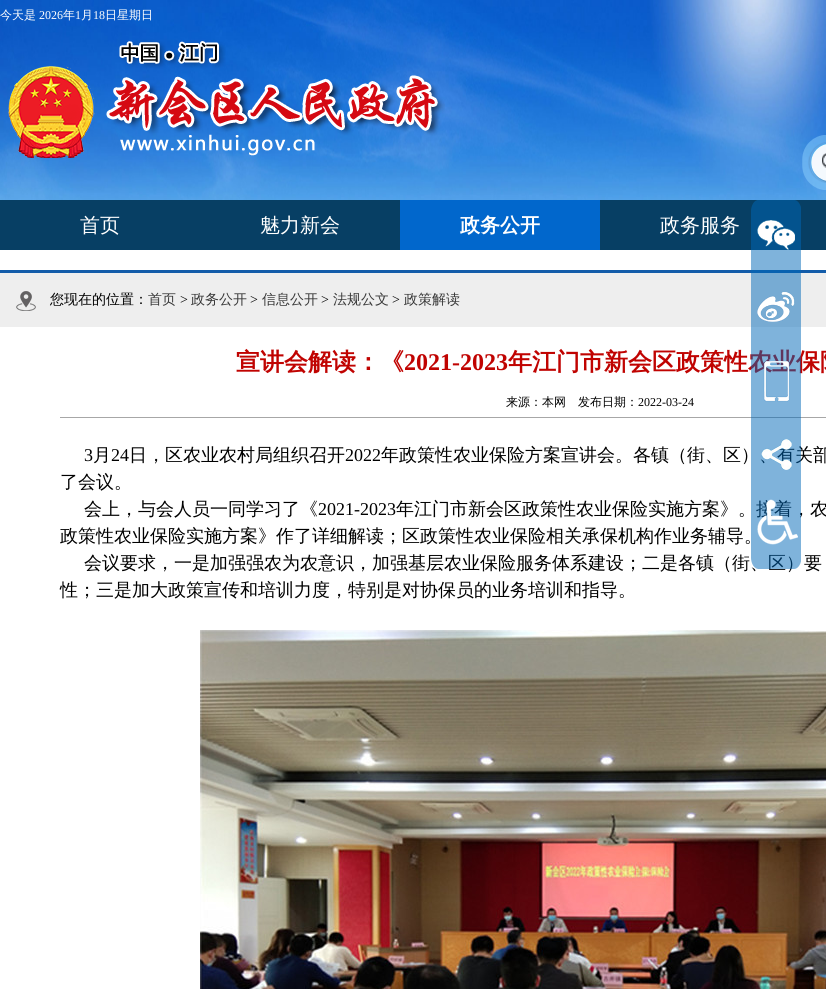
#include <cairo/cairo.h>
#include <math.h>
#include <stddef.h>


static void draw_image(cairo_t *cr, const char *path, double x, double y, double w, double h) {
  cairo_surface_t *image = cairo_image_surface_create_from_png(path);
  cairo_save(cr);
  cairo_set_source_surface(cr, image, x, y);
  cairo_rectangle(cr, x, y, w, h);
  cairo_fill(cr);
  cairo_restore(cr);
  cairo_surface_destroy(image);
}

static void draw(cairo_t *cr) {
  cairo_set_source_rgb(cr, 1, 1, 1);
  cairo_paint(cr);
  draw_image(cr, "images/1.png", 0, 0, 826, 200);
  draw_image(cr, "images/2.png", 8, 41, 437, 117);
  draw_image(cr, "images/3.png", 802, 135, 24, 55);
  cairo_set_source_rgb(cr, 7 / 255.0, 63 / 255.0, 100 / 255.0);
  cairo_rectangle(cr, 0, 200, 400, 50);
  cairo_fill(cr);
  cairo_set_source_rgb(cr, 1 / 255.0, 103 / 255.0, 204 / 255.0);
  cairo_rectangle(cr, 400, 200, 200, 50);
  cairo_fill(cr);
  cairo_set_source_rgb(cr, 7 / 255.0, 63 / 255.0, 100 / 255.0);
  cairo_rectangle(cr, 600, 200, 226, 50);
  cairo_fill(cr);
  cairo_set_source_rgb(cr, 19 / 255.0, 92 / 255.0, 169 / 255.0);
  cairo_rectangle(cr, 0, 270, 826, 3);
  cairo_fill(cr);
  cairo_set_source_rgb(cr, 238 / 255.0, 238 / 255.0, 238 / 255.0);
  cairo_rectangle(cr, 0, 273, 826, 54);
  cairo_fill(cr);
  draw_image(cr, "images/10.png", 16, 291, 20, 20);
  cairo_set_source_rgb(cr, 167 / 255.0, 167 / 255.0, 167 / 255.0);
  cairo_rectangle(cr, 60, 417, 766, 1);
  cairo_fill(cr);
  draw_image(cr, "images/11.png", 200, 630, 626, 359);
  cairo_select_font_face(cr, "WenQuanYi Zen Hei Medium", CAIRO_FONT_SLANT_NORMAL, CAIRO_FONT_WEIGHT_NORMAL);
  cairo_set_font_size(cr, 12);
  cairo_set_source_rgb(cr, 1, 1, 1);
  cairo_move_to(cr, 0, 19);
  cairo_show_text(cr, "今天是");
  cairo_select_font_face(cr, "Liberation Serif", CAIRO_FONT_SLANT_NORMAL, CAIRO_FONT_WEIGHT_NORMAL);
  cairo_move_to(cr, 39, 19);
  cairo_show_text(cr, "2026");
  cairo_select_font_face(cr, "WenQuanYi Zen Hei Medium", CAIRO_FONT_SLANT_NORMAL, CAIRO_FONT_WEIGHT_NORMAL);
  cairo_move_to(cr, 63, 19);
  cairo_show_text(cr, "年");
  cairo_select_font_face(cr, "Liberation Serif", CAIRO_FONT_SLANT_NORMAL, CAIRO_FONT_WEIGHT_NORMAL);
  cairo_move_to(cr, 75, 19);
  cairo_show_text(cr, "1");
  cairo_select_font_face(cr, "WenQuanYi Zen Hei Medium", CAIRO_FONT_SLANT_NORMAL, CAIRO_FONT_WEIGHT_NORMAL);
  cairo_move_to(cr, 81, 19);
  cairo_show_text(cr, "月");
  cairo_select_font_face(cr, "Liberation Serif", CAIRO_FONT_SLANT_NORMAL, CAIRO_FONT_WEIGHT_NORMAL);
  cairo_move_to(cr, 93, 19);
  cairo_show_text(cr, "18");
  cairo_select_font_face(cr, "WenQuanYi Zen Hei Medium", CAIRO_FONT_SLANT_NORMAL, CAIRO_FONT_WEIGHT_NORMAL);
  cairo_move_to(cr, 105, 19);
  cairo_show_text(cr, "日星期日");
  cairo_set_font_size(cr, 20);
  cairo_move_to(cr, 80, 232);
  cairo_show_text(cr, "首页");
  cairo_move_to(cr, 260, 232);
  cairo_show_text(cr, "魅力新会");
  cairo_select_font_face(cr, "WenQuanYi Zen Hei", CAIRO_FONT_SLANT_NORMAL, CAIRO_FONT_WEIGHT_BOLD);
  cairo_move_to(cr, 460, 232);
  cairo_show_text(cr, "政务公开");
  cairo_select_font_face(cr, "WenQuanYi Zen Hei Medium", CAIRO_FONT_SLANT_NORMAL, CAIRO_FONT_WEIGHT_NORMAL);
  cairo_move_to(cr, 660, 232);
  cairo_show_text(cr, "政务服务");
  cairo_set_font_size(cr, 14);
  cairo_set_source_rgb(cr, 0, 0, 0);
  cairo_move_to(cr, 50, 304);
  cairo_show_text(cr, "您现在的位置：");
  cairo_set_source_rgb(cr, 56 / 255.0, 56 / 255.0, 56 / 255.0);
  cairo_move_to(cr, 148, 304);
  cairo_show_text(cr, "首页");
  cairo_select_font_face(cr, "Liberation Serif", CAIRO_FONT_SLANT_NORMAL, CAIRO_FONT_WEIGHT_NORMAL);
  cairo_set_source_rgb(cr, 0, 0, 0);
  cairo_move_to(cr, 180, 304);
  cairo_show_text(cr, ">");
  cairo_select_font_face(cr, "WenQuanYi Zen Hei Medium", CAIRO_FONT_SLANT_NORMAL, CAIRO_FONT_WEIGHT_NORMAL);
  cairo_set_source_rgb(cr, 56 / 255.0, 56 / 255.0, 56 / 255.0);
  cairo_move_to(cr, 191, 304);
  cairo_show_text(cr, "政务公开");
  cairo_select_font_face(cr, "Liberation Serif", CAIRO_FONT_SLANT_NORMAL, CAIRO_FONT_WEIGHT_NORMAL);
  cairo_set_source_rgb(cr, 0, 0, 0);
  cairo_move_to(cr, 250, 304);
  cairo_show_text(cr, ">");
  cairo_select_font_face(cr, "WenQuanYi Zen Hei Medium", CAIRO_FONT_SLANT_NORMAL, CAIRO_FONT_WEIGHT_NORMAL);
  cairo_set_source_rgb(cr, 56 / 255.0, 56 / 255.0, 56 / 255.0);
  cairo_move_to(cr, 262, 304);
  cairo_show_text(cr, "信息公开");
  cairo_select_font_face(cr, "Liberation Serif", CAIRO_FONT_SLANT_NORMAL, CAIRO_FONT_WEIGHT_NORMAL);
  cairo_set_source_rgb(cr, 0, 0, 0);
  cairo_move_to(cr, 321, 304);
  cairo_show_text(cr, ">");
  cairo_select_font_face(cr, "WenQuanYi Zen Hei Medium", CAIRO_FONT_SLANT_NORMAL, CAIRO_FONT_WEIGHT_NORMAL);
  cairo_set_source_rgb(cr, 56 / 255.0, 56 / 255.0, 56 / 255.0);
  cairo_move_to(cr, 333, 304);
  cairo_show_text(cr, "法规公文");
  cairo_select_font_face(cr, "Liberation Serif", CAIRO_FONT_SLANT_NORMAL, CAIRO_FONT_WEIGHT_NORMAL);
  cairo_set_source_rgb(cr, 0, 0, 0);
  cairo_move_to(cr, 392, 304);
  cairo_show_text(cr, ">");
  cairo_select_font_face(cr, "WenQuanYi Zen Hei Medium", CAIRO_FONT_SLANT_NORMAL, CAIRO_FONT_WEIGHT_NORMAL);
  cairo_set_source_rgb(cr, 56 / 255.0, 56 / 255.0, 56 / 255.0);
  cairo_move_to(cr, 404, 304);
  cairo_show_text(cr, "政策解读");
  cairo_select_font_face(cr, "WenQuanYi Zen Hei", CAIRO_FONT_SLANT_NORMAL, CAIRO_FONT_WEIGHT_BOLD);
  cairo_set_font_size(cr, 24);
  cairo_set_source_rgb(cr, 192 / 255.0, 3 / 255.0, 1 / 255.0);
  cairo_move_to(cr, 236, 370);
  cairo_show_text(cr, "宣讲会解读：《");
  cairo_select_font_face(cr, "Liberation Serif", CAIRO_FONT_SLANT_NORMAL, CAIRO_FONT_WEIGHT_BOLD);
  cairo_move_to(cr, 404, 370);
  cairo_show_text(cr, "2021-2023");
  cairo_select_font_face(cr, "WenQuanYi Zen Hei", CAIRO_FONT_SLANT_NORMAL, CAIRO_FONT_WEIGHT_BOLD);
  cairo_move_to(cr, 508, 370);
  cairo_show_text(cr, "年江门市新会区政策性农业保险");
  cairo_select_font_face(cr, "WenQuanYi Zen Hei Medium", CAIRO_FONT_SLANT_NORMAL, CAIRO_FONT_WEIGHT_NORMAL);
  cairo_set_font_size(cr, 12);
  cairo_set_source_rgb(cr, 0, 0, 0);
  cairo_move_to(cr, 506, 406);
  cairo_show_text(cr, "来源：本网");
  cairo_move_to(cr, 578, 406);
  cairo_show_text(cr, "发布日期：");
  cairo_select_font_face(cr, "Liberation Serif", CAIRO_FONT_SLANT_NORMAL, CAIRO_FONT_WEIGHT_NORMAL);
  cairo_move_to(cr, 638, 406);
  cairo_show_text(cr, "2022-03-24");
  cairo_set_font_size(cr, 18);
  cairo_move_to(cr, 84, 461);
  cairo_show_text(cr, "3");
  cairo_select_font_face(cr, "WenQuanYi Zen Hei Medium", CAIRO_FONT_SLANT_NORMAL, CAIRO_FONT_WEIGHT_NORMAL);
  cairo_move_to(cr, 93, 461);
  cairo_show_text(cr, "月");
  cairo_select_font_face(cr, "Liberation Serif", CAIRO_FONT_SLANT_NORMAL, CAIRO_FONT_WEIGHT_NORMAL);
  cairo_move_to(cr, 111, 461);
  cairo_show_text(cr, "24");
  cairo_select_font_face(cr, "WenQuanYi Zen Hei Medium", CAIRO_FONT_SLANT_NORMAL, CAIRO_FONT_WEIGHT_NORMAL);
  cairo_move_to(cr, 129, 461);
  cairo_show_text(cr, "日，区农业农村局组织召开");
  cairo_select_font_face(cr, "Liberation Serif", CAIRO_FONT_SLANT_NORMAL, CAIRO_FONT_WEIGHT_NORMAL);
  cairo_move_to(cr, 345, 461);
  cairo_show_text(cr, "2022");
  cairo_select_font_face(cr, "WenQuanYi Zen Hei Medium", CAIRO_FONT_SLANT_NORMAL, CAIRO_FONT_WEIGHT_NORMAL);
  cairo_move_to(cr, 381, 461);
  cairo_show_text(cr, "年政策性农业保险方案宣讲会。各镇（街、区）、有关部");
  cairo_move_to(cr, 60, 488);
  cairo_show_text(cr, "了会议。");
  cairo_move_to(cr, 84, 515);
  cairo_show_text(cr, "会上，与会人员一同学习了《");
  cairo_select_font_face(cr, "Liberation Serif", CAIRO_FONT_SLANT_NORMAL, CAIRO_FONT_WEIGHT_NORMAL);
  cairo_move_to(cr, 318, 515);
  cairo_show_text(cr, "2021-2023");
  cairo_select_font_face(cr, "WenQuanYi Zen Hei Medium", CAIRO_FONT_SLANT_NORMAL, CAIRO_FONT_WEIGHT_NORMAL);
  cairo_move_to(cr, 396, 515);
  cairo_show_text(cr, "年江门市新会区政策性农业保险实施方案》。接着，农");
  cairo_move_to(cr, 60, 542);
  cairo_show_text(cr, "政策性农业保险实施方案》作了详细解读；区政策性农业保险相关承保机构作业务辅导。");
  cairo_move_to(cr, 84, 569);
  cairo_show_text(cr, "会议要求，一是加强强农为农意识，加强基层农业保险服务体系建设；二是各镇（街、区）要");
  draw_image(cr, "images/4.png", 751, 200, 50, 369);
  draw_image(cr, "images/9.png", 757, 499, 41, 46);
  draw_image(cr, "images/8.png", 761, 439, 31, 31);
  draw_image(cr, "images/7.png", 763, 361, 27, 41);
  draw_image(cr, "images/6.png", 757, 292, 38, 30);
  draw_image(cr, "images/5.png", 757, 220, 38, 30);
  cairo_move_to(cr, 60, 596);
  cairo_show_text(cr, "性；三是加大政策宣传和培训力度，特别是对协保员的业务培训和指导。");
}

int main(void) {
  cairo_surface_t *surface = cairo_image_surface_create(CAIRO_FORMAT_RGB24, 826, 989);
  cairo_t *cr = cairo_create(surface);
  cairo_font_options_t *options = cairo_font_options_create();
  cairo_font_options_set_hint_metrics(options, CAIRO_HINT_METRICS_OFF);
  cairo_font_options_set_hint_style(options, CAIRO_HINT_STYLE_NONE);
  cairo_set_font_options(cr, options);
  cairo_set_miter_limit(cr, 4);
  draw(cr);
  cairo_surface_write_to_png(surface, "out.png");
  cairo_font_options_destroy(options);
  cairo_destroy(cr);
  cairo_surface_destroy(surface);
  return 0;
}
